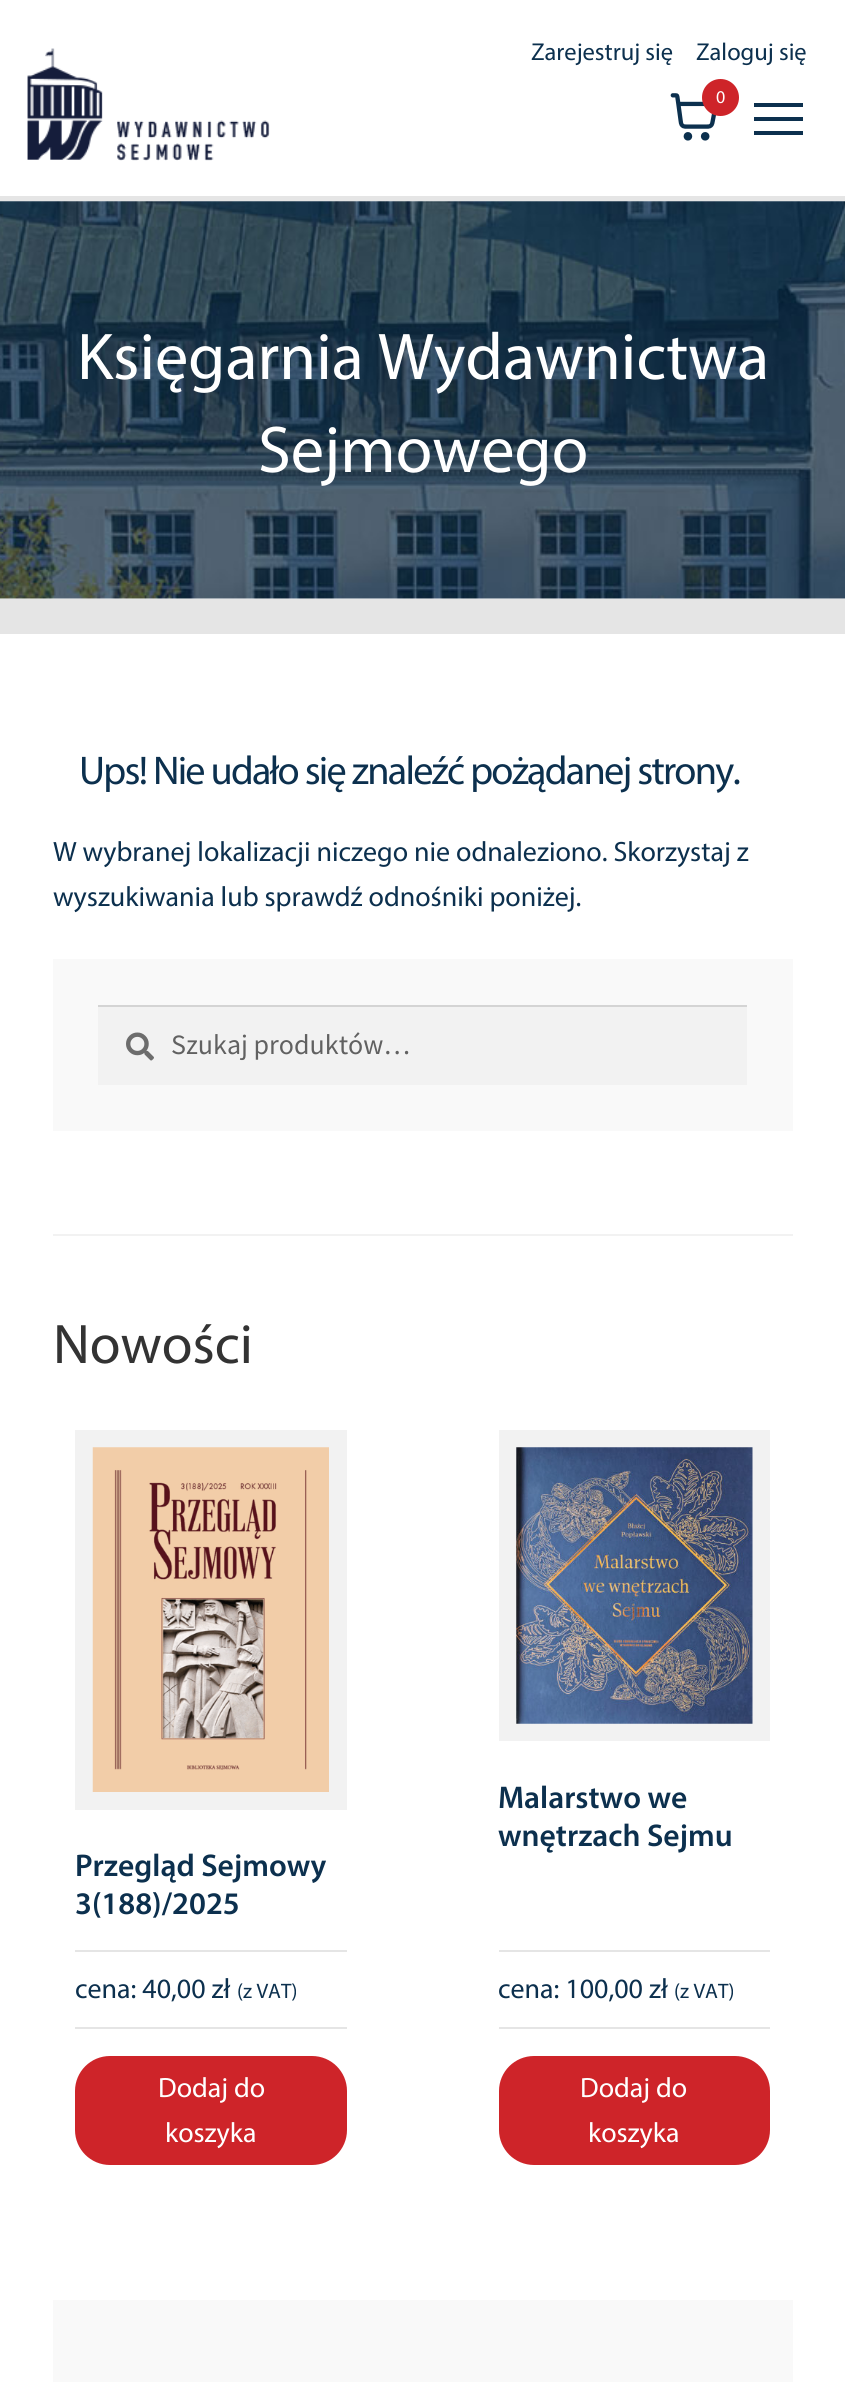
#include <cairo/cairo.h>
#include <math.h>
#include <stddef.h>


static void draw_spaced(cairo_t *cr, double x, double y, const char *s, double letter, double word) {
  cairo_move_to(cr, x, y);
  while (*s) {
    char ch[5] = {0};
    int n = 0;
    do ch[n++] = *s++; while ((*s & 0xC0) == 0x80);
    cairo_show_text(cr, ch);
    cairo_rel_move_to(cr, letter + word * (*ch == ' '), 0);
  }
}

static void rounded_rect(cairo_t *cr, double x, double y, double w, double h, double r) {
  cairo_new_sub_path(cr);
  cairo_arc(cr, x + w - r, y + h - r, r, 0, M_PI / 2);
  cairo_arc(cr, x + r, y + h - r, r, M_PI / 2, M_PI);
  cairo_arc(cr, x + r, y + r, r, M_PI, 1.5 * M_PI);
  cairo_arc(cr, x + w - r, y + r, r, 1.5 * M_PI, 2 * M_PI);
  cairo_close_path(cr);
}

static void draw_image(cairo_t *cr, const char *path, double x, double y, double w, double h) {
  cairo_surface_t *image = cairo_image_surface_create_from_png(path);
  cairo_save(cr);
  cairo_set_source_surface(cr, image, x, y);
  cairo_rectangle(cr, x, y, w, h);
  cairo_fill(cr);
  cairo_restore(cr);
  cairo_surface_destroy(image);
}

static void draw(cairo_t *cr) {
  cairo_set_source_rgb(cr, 1, 1, 1);
  cairo_paint(cr);
  draw_image(cr, "images/1.png", 27, 48, 243, 113);
  draw_image(cr, "images/2.png", 670, 93, 46, 48);
  cairo_set_source_rgb(cr, 206 / 255.0, 36 / 255.0, 41 / 255.0);
  cairo_arc(cr, 720.5, 97.5, 18.5, 0, 2 * M_PI);
  cairo_fill(cr);
  cairo_set_source_rgb(cr, 12 / 255.0, 48 / 255.0, 78 / 255.0);
  cairo_rectangle(cr, 754, 103, 49, 4);
  cairo_fill(cr);
  cairo_rectangle(cr, 754, 117, 49, 4);
  cairo_fill(cr);
  cairo_rectangle(cr, 754, 131, 49, 4);
  cairo_fill(cr);
  cairo_set_source_rgb(cr, 229 / 255.0, 229 / 255.0, 229 / 255.0);
  cairo_rectangle(cr, 0, 196, 845, 5);
  cairo_fill(cr);
  cairo_rectangle(cr, 0, 599, 845, 35);
  cairo_fill(cr);
  draw_image(cr, "images/3.png", 0, 201, 845, 398);
  cairo_set_source_rgb(cr, 249 / 255.0, 249 / 255.0, 249 / 255.0);
  cairo_rectangle(cr, 53, 959, 740, 172);
  cairo_fill(cr);
  cairo_set_source_rgb(cr, 242 / 255.0, 242 / 255.0, 242 / 255.0);
  cairo_rectangle(cr, 98, 1007, 649, 78);
  cairo_fill(cr);
  draw_image(cr, "images/4.png", 126, 1032, 28, 29);
  cairo_set_source_rgb(cr, 212 / 255.0, 212 / 255.0, 212 / 255.0);
  cairo_rectangle(cr, 98, 1005, 649, 2);
  cairo_fill(cr);
  cairo_set_source_rgb(cr, 242 / 255.0, 242 / 255.0, 242 / 255.0);
  cairo_rectangle(cr, 53, 1234, 740, 2);
  cairo_fill(cr);
  cairo_rectangle(cr, 75, 1430, 272, 380);
  cairo_fill(cr);
  draw_image(cr, "images/5.png", 92, 1447, 237, 345);
  cairo_set_source_rgb(cr, 229 / 255.0, 229 / 255.0, 229 / 255.0);
  cairo_rectangle(cr, 75, 1950, 272, 2);
  cairo_fill(cr);
  cairo_rectangle(cr, 75, 2027, 272, 2);
  cairo_fill(cr);
  cairo_set_source_rgb(cr, 206 / 255.0, 36 / 255.0, 41 / 255.0);
  rounded_rect(cr, 76, 2057, 270, 107, 34);
  cairo_fill_preserve(cr);
  cairo_stroke(cr);
  cairo_set_source_rgb(cr, 242 / 255.0, 242 / 255.0, 242 / 255.0);
  cairo_rectangle(cr, 499, 1430, 271, 311);
  cairo_fill(cr);
  draw_image(cr, "images/6.png", 516, 1447, 237, 277);
  cairo_set_source_rgb(cr, 229 / 255.0, 229 / 255.0, 229 / 255.0);
  cairo_rectangle(cr, 499, 1950, 271, 2);
  cairo_fill(cr);
  cairo_rectangle(cr, 499, 2027, 271, 2);
  cairo_fill(cr);
  cairo_set_source_rgb(cr, 206 / 255.0, 36 / 255.0, 41 / 255.0);
  rounded_rect(cr, 500, 2057, 269, 107, 34);
  cairo_fill_preserve(cr);
  cairo_stroke(cr);
  cairo_set_source_rgb(cr, 249 / 255.0, 249 / 255.0, 249 / 255.0);
  cairo_rectangle(cr, 53, 2300, 740, 82);
  cairo_fill(cr);
  cairo_select_font_face(cr, "Myriad", CAIRO_FONT_SLANT_NORMAL, CAIRO_FONT_WEIGHT_NORMAL);
  cairo_set_font_size(cr, 24.5);
  cairo_set_source_rgb(cr, 12 / 255.0, 48 / 255.0, 78 / 255.0);
  cairo_move_to(cr, 531, 60);
  cairo_show_text(cr, "Zarejestruj się");
  cairo_move_to(cr, 696, 60);
  cairo_show_text(cr, "Zaloguj się");
  cairo_set_font_size(cr, 18);
  cairo_set_source_rgb(cr, 1, 1, 1);
  cairo_move_to(cr, 716, 103);
  cairo_show_text(cr, "0");
  cairo_set_font_size(cr, 66.5);
  cairo_move_to(cr, 77, 379);
  cairo_show_text(cr, "Księgarnia Wydawnictwa");
  cairo_move_to(cr, 258, 472);
  cairo_show_text(cr, "Sejmowego");
  cairo_set_font_size(cr, 40.25);
  cairo_set_source_rgb(cr, 12 / 255.0, 48 / 255.0, 78 / 255.0);
  draw_spaced(cr, 79, 784, "Ups! Nie udało się znaleźć pożądanej strony.", -1.75, 0);
  cairo_set_font_size(cr, 28);
  cairo_move_to(cr, 53, 861);
  cairo_show_text(cr, "W wybranej lokalizacji niczego nie odnaleziono. Skorzystaj z");
  cairo_move_to(cr, 53, 906);
  cairo_show_text(cr, "wyszukiwania lub sprawdź odnośniki poniżej.");
  cairo_select_font_face(cr, "Source Sans Pro", CAIRO_FONT_SLANT_NORMAL, CAIRO_FONT_WEIGHT_NORMAL);
  cairo_set_source_rgb(cr, 97 / 255.0, 97 / 255.0, 97 / 255.0);
  cairo_move_to(cr, 171, 1054);
  cairo_show_text(cr, "Szukaj produktów…");
  cairo_select_font_face(cr, "Myriad", CAIRO_FONT_SLANT_NORMAL, CAIRO_FONT_WEIGHT_NORMAL);
  cairo_set_font_size(cr, 56);
  cairo_set_source_rgb(cr, 51 / 255.0, 51 / 255.0, 51 / 255.0);
  cairo_move_to(cr, 53, 1363);
  cairo_show_text(cr, "Nowości");
  cairo_select_font_face(cr, "Myriad SemiBold", CAIRO_FONT_SLANT_NORMAL, CAIRO_FONT_WEIGHT_NORMAL);
  cairo_set_font_size(cr, 31.5);
  cairo_set_source_rgb(cr, 12 / 255.0, 48 / 255.0, 78 / 255.0);
  cairo_move_to(cr, 75, 1876);
  cairo_show_text(cr, "Przegląd Sejmowy");
  cairo_move_to(cr, 75, 1914);
  cairo_show_text(cr, "3(188)/2025");
  cairo_select_font_face(cr, "Myriad", CAIRO_FONT_SLANT_NORMAL, CAIRO_FONT_WEIGHT_NORMAL);
  cairo_set_font_size(cr, 28);
  cairo_move_to(cr, 75, 1998);
  cairo_show_text(cr, "cena: 40,00 zł");
  cairo_set_font_size(cr, 21);
  cairo_move_to(cr, 237, 1998);
  cairo_show_text(cr, "(z VAT)");
  cairo_set_font_size(cr, 28);
  cairo_set_source_rgb(cr, 1, 1, 1);
  cairo_move_to(cr, 158, 2097);
  cairo_show_text(cr, "Dodaj do");
  cairo_move_to(cr, 165, 2142);
  cairo_show_text(cr, "koszyka");
  cairo_select_font_face(cr, "Myriad SemiBold", CAIRO_FONT_SLANT_NORMAL, CAIRO_FONT_WEIGHT_NORMAL);
  cairo_set_font_size(cr, 31.5);
  cairo_set_source_rgb(cr, 12 / 255.0, 48 / 255.0, 78 / 255.0);
  cairo_move_to(cr, 498, 1808);
  cairo_show_text(cr, "Malarstwo we");
  cairo_move_to(cr, 498, 1846);
  cairo_show_text(cr, "wnętrzach Sejmu");
  cairo_select_font_face(cr, "Myriad", CAIRO_FONT_SLANT_NORMAL, CAIRO_FONT_WEIGHT_NORMAL);
  cairo_set_font_size(cr, 28);
  cairo_move_to(cr, 498, 1998);
  cairo_show_text(cr, "cena: 100,00 zł");
  cairo_set_font_size(cr, 21);
  cairo_move_to(cr, 674, 1998);
  cairo_show_text(cr, "(z VAT)");
  cairo_set_font_size(cr, 28);
  cairo_set_source_rgb(cr, 1, 1, 1);
  cairo_move_to(cr, 580, 2097);
  cairo_show_text(cr, "Dodaj do");
  cairo_move_to(cr, 588, 2142);
  cairo_show_text(cr, "koszyka");
}

int main(void) {
  cairo_surface_t *surface = cairo_image_surface_create(CAIRO_FORMAT_RGB24, 845, 2382);
  cairo_t *cr = cairo_create(surface);
  cairo_font_options_t *options = cairo_font_options_create();
  cairo_font_options_set_hint_metrics(options, CAIRO_HINT_METRICS_OFF);
  cairo_font_options_set_hint_style(options, CAIRO_HINT_STYLE_NONE);
  cairo_set_font_options(cr, options);
  cairo_set_miter_limit(cr, 4);
  draw(cr);
  cairo_surface_write_to_png(surface, "out.png");
  cairo_font_options_destroy(options);
  cairo_destroy(cr);
  cairo_surface_destroy(surface);
  return 0;
}
